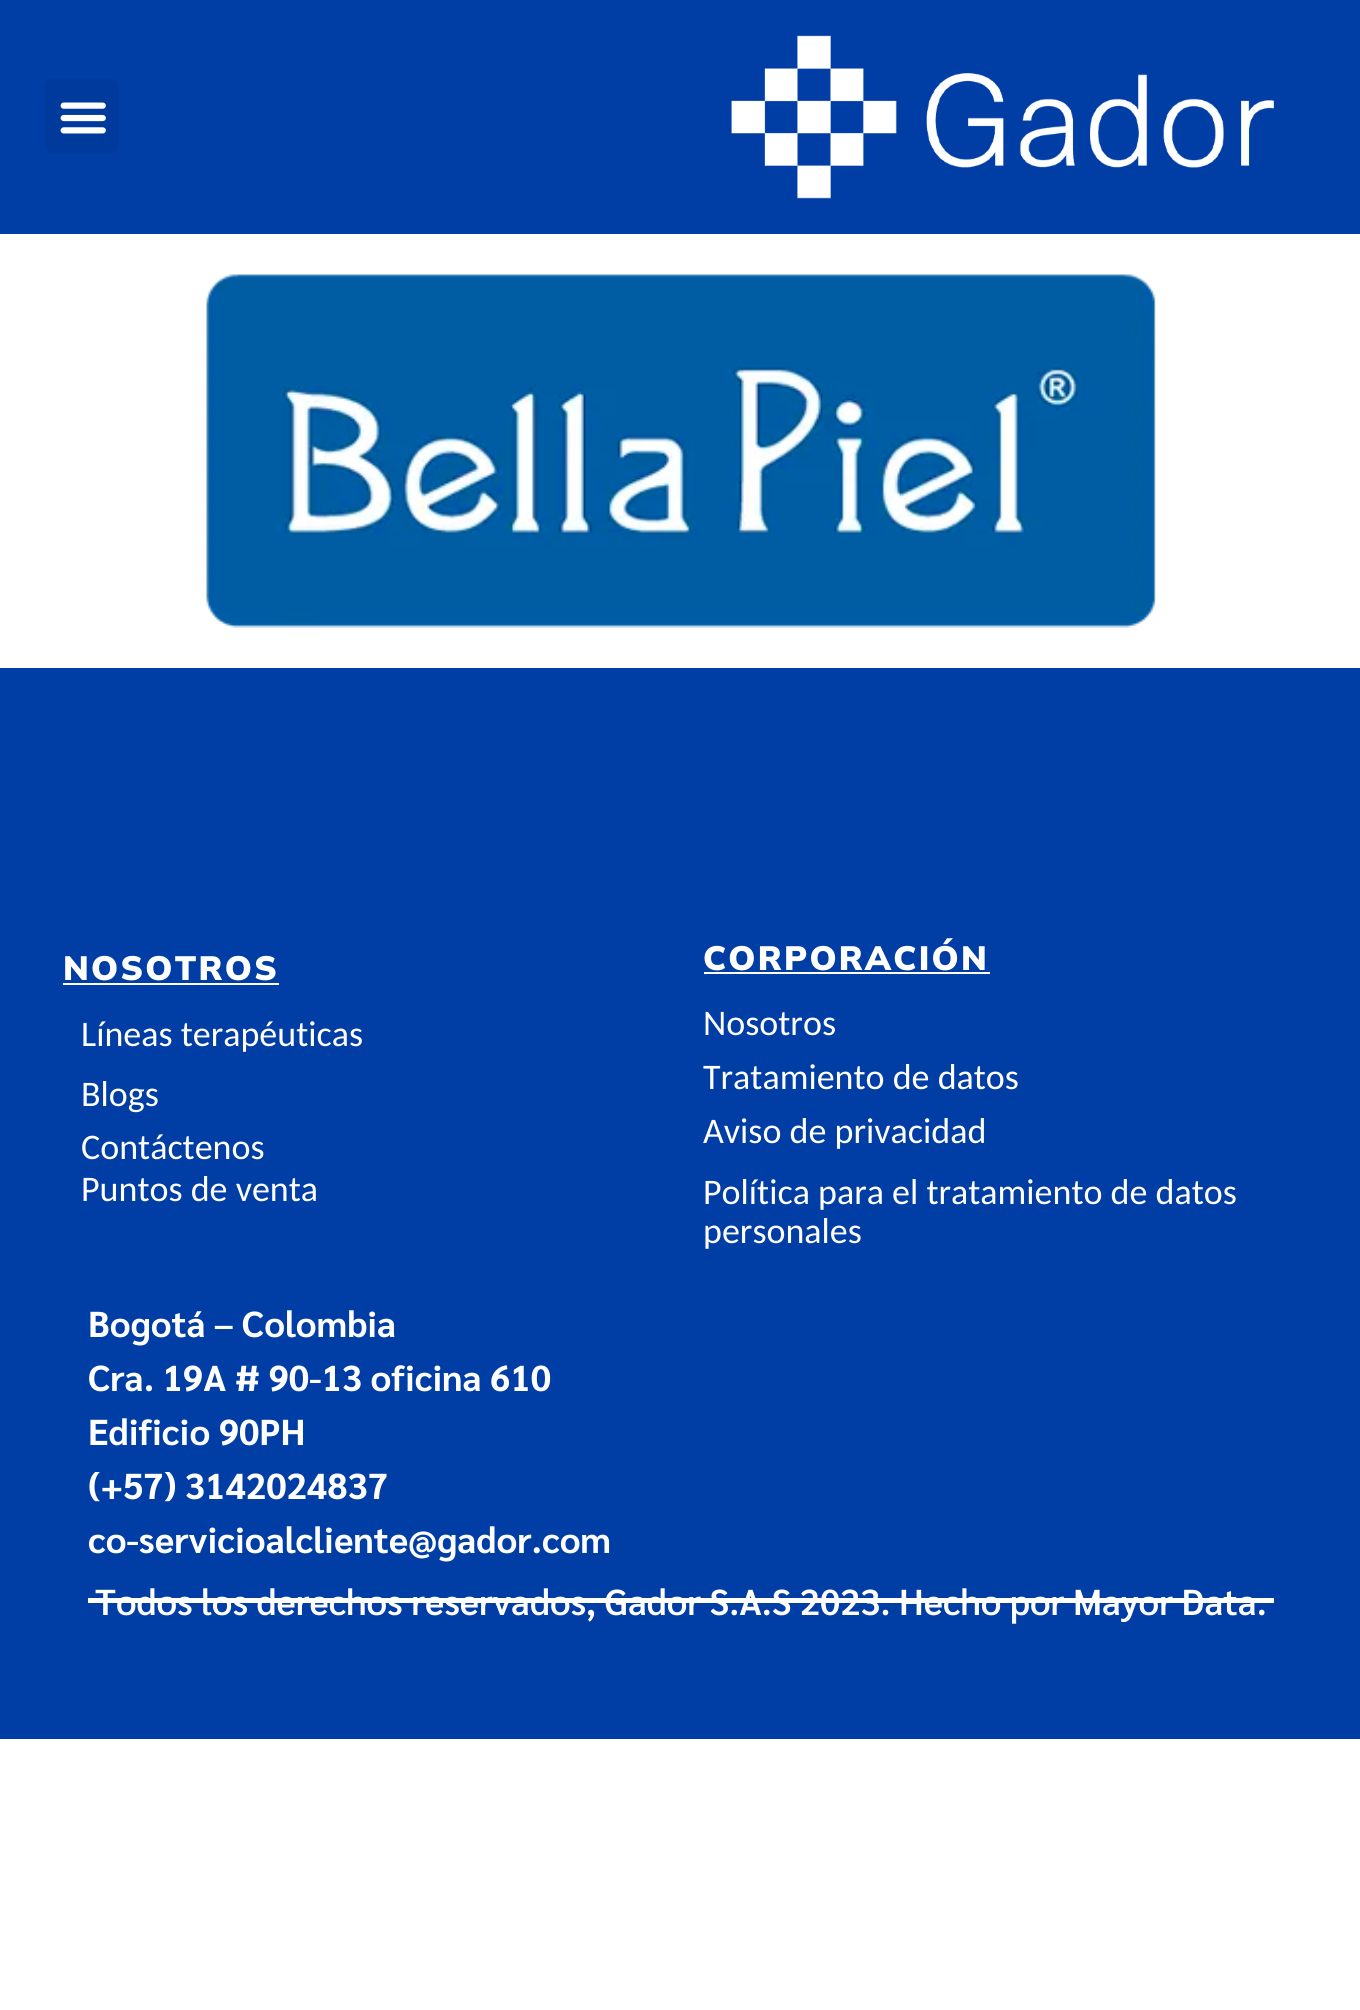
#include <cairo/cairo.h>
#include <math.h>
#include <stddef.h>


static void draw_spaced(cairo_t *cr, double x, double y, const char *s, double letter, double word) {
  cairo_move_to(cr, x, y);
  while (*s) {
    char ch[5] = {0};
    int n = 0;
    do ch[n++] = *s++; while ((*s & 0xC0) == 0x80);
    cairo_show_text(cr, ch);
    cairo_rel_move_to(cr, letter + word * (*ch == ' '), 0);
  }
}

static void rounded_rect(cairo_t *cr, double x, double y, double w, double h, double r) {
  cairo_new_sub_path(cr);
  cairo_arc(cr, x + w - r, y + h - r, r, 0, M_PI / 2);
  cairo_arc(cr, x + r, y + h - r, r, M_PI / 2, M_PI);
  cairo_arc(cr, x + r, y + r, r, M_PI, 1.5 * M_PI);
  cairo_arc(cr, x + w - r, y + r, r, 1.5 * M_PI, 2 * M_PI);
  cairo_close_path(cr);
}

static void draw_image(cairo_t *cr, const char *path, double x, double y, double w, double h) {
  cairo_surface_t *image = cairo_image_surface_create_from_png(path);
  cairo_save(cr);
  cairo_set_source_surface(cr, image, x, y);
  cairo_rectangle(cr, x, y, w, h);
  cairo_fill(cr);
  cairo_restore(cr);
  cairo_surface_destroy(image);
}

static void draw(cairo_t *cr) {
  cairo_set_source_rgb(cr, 1, 1, 1);
  cairo_paint(cr);
  cairo_set_source_rgb(cr, 0, 61 / 255.0, 165 / 255.0);
  cairo_rectangle(cr, 0, 0, 1360, 234);
  cairo_fill(cr);
  cairo_set_source_rgb(cr, 0, 58 / 255.0, 157 / 255.0);
  rounded_rect(cr, 45, 79, 74, 74, 7);
  cairo_fill(cr);
  draw_image(cr, "images/1.png", 60, 102, 46, 32);
  draw_image(cr, "images/2.png", 731, 35, 543, 164);
  draw_image(cr, "images/3.png", 206, 274, 950, 354);
  cairo_set_source_rgb(cr, 0, 61 / 255.0, 165 / 255.0);
  cairo_rectangle(cr, 0, 668, 1360, 1071);
  cairo_fill(cr);
  cairo_set_source_rgb(cr, 1, 1, 1);
  cairo_rectangle(cr, 63, 983, 216, 2);
  cairo_fill(cr);
  cairo_rectangle(cr, 704, 972, 286, 2);
  cairo_fill(cr);
  cairo_rectangle(cr, 88, 1598, 1186, 5);
  cairo_fill(cr);
  cairo_select_font_face(cr, "Mulish Black", CAIRO_FONT_SLANT_NORMAL, CAIRO_FONT_WEIGHT_NORMAL);
  cairo_set_font_size(cr, 33.75);
  draw_spaced(cr, 63, 980, "NOSOTROS", 2.25, 0);
  cairo_select_font_face(cr, "Carlito", CAIRO_FONT_SLANT_NORMAL, CAIRO_FONT_WEIGHT_NORMAL);
  cairo_set_font_size(cr, 36);
  cairo_move_to(cr, 81, 1046);
  cairo_show_text(cr, "Líneas terapéuticas");
  cairo_move_to(cr, 81, 1106);
  cairo_show_text(cr, "Blogs");
  cairo_move_to(cr, 81, 1159);
  cairo_show_text(cr, "Contáctenos");
  cairo_move_to(cr, 81, 1201);
  cairo_show_text(cr, "Puntos de venta");
  cairo_select_font_face(cr, "Mulish Black", CAIRO_FONT_SLANT_NORMAL, CAIRO_FONT_WEIGHT_NORMAL);
  cairo_set_font_size(cr, 33.75);
  draw_spaced(cr, 703, 970, "CORPORACIÓN", 2.25, 0);
  cairo_select_font_face(cr, "Carlito", CAIRO_FONT_SLANT_NORMAL, CAIRO_FONT_WEIGHT_NORMAL);
  cairo_set_font_size(cr, 36);
  cairo_move_to(cr, 703, 1035);
  cairo_show_text(cr, "Nosotros");
  cairo_move_to(cr, 703, 1089);
  cairo_show_text(cr, "Tratamiento de datos");
  cairo_move_to(cr, 703, 1143);
  cairo_show_text(cr, "Aviso de privacidad");
  cairo_move_to(cr, 703, 1204);
  cairo_show_text(cr, "Política para el tratamiento de datos");
  cairo_move_to(cr, 703, 1243);
  cairo_show_text(cr, "personales");
  cairo_select_font_face(cr, "Sarabun", CAIRO_FONT_SLANT_NORMAL, CAIRO_FONT_WEIGHT_BOLD);
  cairo_move_to(cr, 88, 1337);
  cairo_show_text(cr, "Bogotá – Colombia");
  cairo_move_to(cr, 88, 1391);
  cairo_show_text(cr, "Cra. 19A # 90-13 oficina 610");
  cairo_move_to(cr, 88, 1445);
  cairo_show_text(cr, "Edificio 90PH");
  cairo_move_to(cr, 88, 1499);
  cairo_show_text(cr, "(+57) 3142024837");
  cairo_move_to(cr, 88, 1553);
  cairo_show_text(cr, "co-servicioalcliente@gador.com");
  cairo_select_font_face(cr, "Sarabun SemiBold", CAIRO_FONT_SLANT_NORMAL, CAIRO_FONT_WEIGHT_NORMAL);
  cairo_move_to(cr, 95, 1615);
  cairo_show_text(cr, "Todos los derechos reservados, Gador S.A.S 2023. Hecho por Mayor Data.");
}

int main(void) {
  cairo_surface_t *surface = cairo_image_surface_create(CAIRO_FORMAT_RGB24, 1360, 2010);
  cairo_t *cr = cairo_create(surface);
  cairo_font_options_t *options = cairo_font_options_create();
  cairo_font_options_set_hint_metrics(options, CAIRO_HINT_METRICS_OFF);
  cairo_font_options_set_hint_style(options, CAIRO_HINT_STYLE_NONE);
  cairo_set_font_options(cr, options);
  cairo_set_miter_limit(cr, 4);
  draw(cr);
  cairo_surface_write_to_png(surface, "out.png");
  cairo_font_options_destroy(options);
  cairo_destroy(cr);
  cairo_surface_destroy(surface);
  return 0;
}
